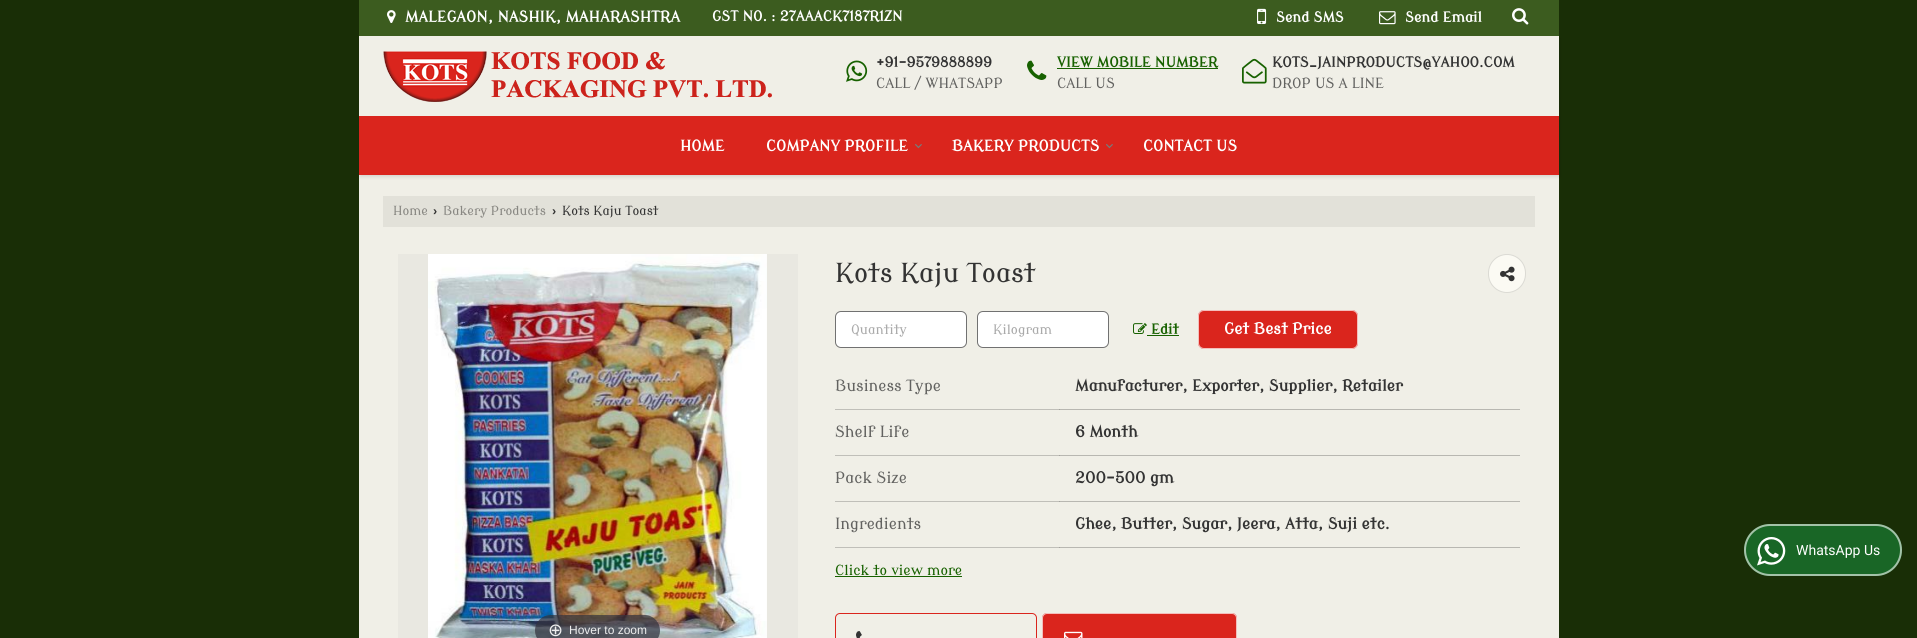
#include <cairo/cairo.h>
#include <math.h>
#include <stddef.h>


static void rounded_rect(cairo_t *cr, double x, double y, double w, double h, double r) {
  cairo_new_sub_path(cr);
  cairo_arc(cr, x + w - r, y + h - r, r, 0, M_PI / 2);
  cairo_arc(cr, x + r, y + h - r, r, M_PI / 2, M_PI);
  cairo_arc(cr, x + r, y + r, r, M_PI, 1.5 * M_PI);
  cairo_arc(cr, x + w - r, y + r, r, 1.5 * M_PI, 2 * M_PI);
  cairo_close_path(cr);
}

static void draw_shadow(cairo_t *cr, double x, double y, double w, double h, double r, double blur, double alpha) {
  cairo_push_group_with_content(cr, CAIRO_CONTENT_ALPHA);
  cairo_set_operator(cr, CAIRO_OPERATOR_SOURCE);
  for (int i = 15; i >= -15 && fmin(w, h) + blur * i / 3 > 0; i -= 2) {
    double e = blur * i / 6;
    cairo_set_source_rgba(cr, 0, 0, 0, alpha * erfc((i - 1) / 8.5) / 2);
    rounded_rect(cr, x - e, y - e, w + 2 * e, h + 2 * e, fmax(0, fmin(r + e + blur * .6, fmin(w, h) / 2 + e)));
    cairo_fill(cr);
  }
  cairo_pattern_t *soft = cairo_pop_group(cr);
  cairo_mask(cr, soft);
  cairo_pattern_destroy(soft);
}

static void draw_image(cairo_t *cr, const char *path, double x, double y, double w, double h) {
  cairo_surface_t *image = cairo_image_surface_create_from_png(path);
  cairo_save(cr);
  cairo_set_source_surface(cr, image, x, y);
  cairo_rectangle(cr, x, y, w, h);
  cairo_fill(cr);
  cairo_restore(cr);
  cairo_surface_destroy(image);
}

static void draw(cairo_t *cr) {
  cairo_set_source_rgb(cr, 25 / 255.0, 46 / 255.0, 6 / 255.0);
  cairo_paint(cr);
  cairo_set_source_rgb(cr, 240 / 255.0, 239 / 255.0, 231 / 255.0);
  cairo_rectangle(cr, 359, 36, 1200, 602);
  cairo_fill(cr);
  cairo_save(cr);
  cairo_set_fill_rule(cr, CAIRO_FILL_RULE_EVEN_ODD);
  cairo_new_path(cr);
  cairo_move_to(cr, 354, 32);
  cairo_line_to(cr, 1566, 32);
  cairo_line_to(cr, 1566, 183);
  cairo_line_to(cr, 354, 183);
  cairo_close_path(cr);
  cairo_move_to(cr, 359, 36);
  cairo_line_to(cr, 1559, 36);
  cairo_line_to(cr, 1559, 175);
  cairo_line_to(cr, 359, 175);
  cairo_close_path(cr);
  cairo_clip(cr);
  cairo_set_source_rgb(cr, 0, 0, 0);
  draw_shadow(cr, 360, 38, 1200, 139, 0, 1.5, 0.1);
  cairo_restore(cr);
  cairo_set_source_rgb(cr, 60 / 255.0, 92 / 255.0, 31 / 255.0);
  cairo_rectangle(cr, 359, 0, 1200, 36);
  cairo_fill(cr);
  draw_image(cr, "images/1.png", 387, 10, 9, 13);
  draw_image(cr, "images/2.png", 1257, 8, 10, 16);
  draw_image(cr, "images/3.png", 1379, 11, 17, 14);
  draw_image(cr, "images/4.png", 1512, 8, 17, 17);
  draw_image(cr, "images/5.png", 383, 51, 389, 51);
  draw_image(cr, "images/6.png", 846, 60, 22, 22);
  draw_image(cr, "images/7.png", 1027, 60, 20, 20);
  cairo_set_source_rgb(cr, 23 / 255.0, 97 / 255.0, 0);
  cairo_rectangle(cr, 1057, 68, 161, 1);
  cairo_fill(cr);
  draw_image(cr, "images/8.png", 1242, 58, 25, 26);
  cairo_set_source_rgb(cr, 218 / 255.0, 37 / 255.0, 29 / 255.0);
  cairo_rectangle(cr, 359, 116, 1200, 59);
  cairo_fill(cr);
  draw_image(cr, "images/9.png", 915, 144, 7, 5);
  draw_image(cr, "images/9.png", 1106, 144, 7, 5);
  cairo_set_source_rgb(cr, 226 / 255.0, 225 / 255.0, 217 / 255.0);
  cairo_rectangle(cr, 383, 196, 1152, 31);
  cairo_fill(cr);
  cairo_set_source_rgb(cr, 251 / 255.0, 250 / 255.0, 243 / 255.0);
  rounded_rect(cr, 1488, 254, 38, 39, 19);
  cairo_fill(cr);
  rounded_rect(cr, 1488.5, 254.5, 37, 38, 18.5);
  cairo_set_source_rgba(cr, 0, 0, 0, 0.13);
  cairo_set_line_width(cr, 1);
  cairo_stroke(cr);
  draw_image(cr, "images/10.png", 1500, 266, 15, 16);
  cairo_set_source_rgb(cr, 1, 1, 1);
  rounded_rect(cr, 835.5, 311.5, 131, 36, 5.5);
  cairo_fill_preserve(cr);
  cairo_set_source_rgb(cr, 113 / 255.0, 113 / 255.0, 113 / 255.0);
  cairo_stroke(cr);
  cairo_set_source_rgb(cr, 1, 1, 1);
  rounded_rect(cr, 977.5, 311.5, 131, 36, 5.5);
  cairo_fill_preserve(cr);
  cairo_set_source_rgb(cr, 113 / 255.0, 113 / 255.0, 113 / 255.0);
  cairo_stroke(cr);
  draw_image(cr, "images/11.png", 1133, 323, 14, 11);
  cairo_set_source_rgb(cr, 23 / 255.0, 97 / 255.0, 0);
  cairo_rectangle(cr, 1147, 335, 32, 1);
  cairo_fill(cr);
  cairo_set_source_rgb(cr, 218 / 255.0, 37 / 255.0, 29 / 255.0);
  rounded_rect(cr, 1198, 310, 160, 39, 6);
  cairo_fill(cr);
  rounded_rect(cr, 1198.5, 310.5, 159, 38, 5.5);
  cairo_set_source_rgba(cr, 1, 1, 1, 0.7);
  cairo_stroke(cr);
  cairo_set_source_rgb(cr, 192 / 255.0, 191 / 255.0, 185 / 255.0);
  cairo_rectangle(cr, 835, 409, 225, 1);
  cairo_fill(cr);
  cairo_set_source_rgb(cr, 184 / 255.0, 183 / 255.0, 177 / 255.0);
  cairo_rectangle(cr, 1059, 409, 461, 1);
  cairo_fill(cr);
  cairo_set_source_rgb(cr, 164 / 255.0, 163 / 255.0, 158 / 255.0);
  cairo_rectangle(cr, 1059, 409, 1, 1);
  cairo_fill(cr);
  cairo_set_source_rgb(cr, 192 / 255.0, 191 / 255.0, 185 / 255.0);
  cairo_rectangle(cr, 835, 455, 225, 1);
  cairo_fill(cr);
  cairo_set_source_rgb(cr, 184 / 255.0, 183 / 255.0, 177 / 255.0);
  cairo_rectangle(cr, 1059, 455, 461, 1);
  cairo_fill(cr);
  cairo_set_source_rgb(cr, 164 / 255.0, 163 / 255.0, 158 / 255.0);
  cairo_rectangle(cr, 1059, 455, 1, 1);
  cairo_fill(cr);
  cairo_set_source_rgb(cr, 192 / 255.0, 191 / 255.0, 185 / 255.0);
  cairo_rectangle(cr, 835, 501, 225, 1);
  cairo_fill(cr);
  cairo_set_source_rgb(cr, 184 / 255.0, 183 / 255.0, 177 / 255.0);
  cairo_rectangle(cr, 1059, 501, 461, 1);
  cairo_fill(cr);
  cairo_set_source_rgb(cr, 164 / 255.0, 163 / 255.0, 158 / 255.0);
  cairo_rectangle(cr, 1059, 501, 1, 1);
  cairo_fill(cr);
  cairo_set_source_rgb(cr, 192 / 255.0, 191 / 255.0, 185 / 255.0);
  cairo_rectangle(cr, 835, 547, 225, 1);
  cairo_fill(cr);
  cairo_set_source_rgb(cr, 184 / 255.0, 183 / 255.0, 177 / 255.0);
  cairo_rectangle(cr, 1059, 547, 461, 1);
  cairo_fill(cr);
  cairo_set_source_rgb(cr, 164 / 255.0, 163 / 255.0, 158 / 255.0);
  cairo_rectangle(cr, 1059, 547, 1, 1);
  cairo_fill(cr);
  cairo_set_source_rgb(cr, 23 / 255.0, 97 / 255.0, 0);
  cairo_rectangle(cr, 835, 576, 127, 1);
  cairo_fill(cr);
  rounded_rect(cr, 835.5, 613.5, 201, 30, 4.5);
  cairo_set_source_rgb(cr, 218 / 255.0, 37 / 255.0, 29 / 255.0);
  cairo_stroke(cr);
  draw_image(cr, "images/12.png", 856, 631, 6, 7);
  rounded_rect(cr, 1042, 613, 195, 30, 5);
  cairo_fill(cr);
  rounded_rect(cr, 1042.5, 613.5, 194, 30, 4.5);
  cairo_set_source_rgba(cr, 1, 1, 1, 0.7);
  cairo_stroke(cr);
  draw_image(cr, "images/13.png", 1064, 631, 19, 7);
  cairo_set_source_rgb(cr, 233 / 255.0, 232 / 255.0, 225 / 255.0);
  cairo_rectangle(cr, 398, 254, 400, 384);
  cairo_fill(cr);
  draw_image(cr, "images/14.png", 428, 254, 339, 384);
  cairo_set_source_rgba(cr, 49 / 255.0, 51 / 255.0, 61 / 255.0, 0.7);
  rounded_rect(cr, 535, 615, 125, 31, 15.5);
  cairo_fill(cr);
  cairo_set_source_rgb(cr, 25 / 255.0, 102 / 255.0, 38 / 255.0);
  rounded_rect(cr, 1744, 524, 158, 52, 26);
  cairo_fill(cr);
  rounded_rect(cr, 1745, 525, 156, 50, 25);
  cairo_set_source_rgba(cr, 1, 1, 1, 0.6);
  cairo_set_line_width(cr, 2);
  cairo_stroke(cr);
  draw_image(cr, "images/15.png", 1757, 537, 29, 29);
  cairo_select_font_face(cr, "Modern Antiqua", CAIRO_FONT_SLANT_NORMAL, CAIRO_FONT_WEIGHT_BOLD);
  cairo_set_font_size(cr, 15.1);
  cairo_set_source_rgb(cr, 1, 1, 1);
  cairo_move_to(cr, 405, 22);
  cairo_show_text(cr, "MALEGAON, NASHIK, MAHARASHTRA");
  cairo_set_font_size(cr, 14);
  cairo_move_to(cr, 712, 21);
  cairo_show_text(cr, "GST NO. : 27AAACK7187R1ZN");
  cairo_move_to(cr, 1276, 22);
  cairo_show_text(cr, "Send SMS");
  cairo_move_to(cr, 1405, 22);
  cairo_show_text(cr, "Send Email");
  cairo_set_source_rgb(cr, 51 / 255.0, 51 / 255.0, 51 / 255.0);
  cairo_move_to(cr, 876, 67);
  cairo_show_text(cr, "+91-9579888899");
  cairo_select_font_face(cr, "Modern Antiqua", CAIRO_FONT_SLANT_NORMAL, CAIRO_FONT_WEIGHT_NORMAL);
  cairo_set_source_rgb(cr, 98 / 255.0, 98 / 255.0, 96 / 255.0);
  cairo_move_to(cr, 876, 88);
  cairo_show_text(cr, "CALL / WHATSAPP");
  cairo_select_font_face(cr, "Modern Antiqua", CAIRO_FONT_SLANT_NORMAL, CAIRO_FONT_WEIGHT_BOLD);
  cairo_set_source_rgb(cr, 23 / 255.0, 97 / 255.0, 0);
  cairo_move_to(cr, 1057, 67);
  cairo_show_text(cr, "VIEW MOBILE NUMBER");
  cairo_select_font_face(cr, "Modern Antiqua", CAIRO_FONT_SLANT_NORMAL, CAIRO_FONT_WEIGHT_NORMAL);
  cairo_set_source_rgb(cr, 98 / 255.0, 98 / 255.0, 96 / 255.0);
  cairo_move_to(cr, 1057, 88);
  cairo_show_text(cr, "CALL US");
  cairo_select_font_face(cr, "Modern Antiqua", CAIRO_FONT_SLANT_NORMAL, CAIRO_FONT_WEIGHT_BOLD);
  cairo_set_source_rgb(cr, 51 / 255.0, 51 / 255.0, 51 / 255.0);
  cairo_move_to(cr, 1272, 67);
  cairo_show_text(cr, "KOTS_JAINPRODUCTS@YAHOO.COM");
  cairo_select_font_face(cr, "Modern Antiqua", CAIRO_FONT_SLANT_NORMAL, CAIRO_FONT_WEIGHT_NORMAL);
  cairo_set_source_rgb(cr, 98 / 255.0, 98 / 255.0, 96 / 255.0);
  cairo_move_to(cr, 1272, 88);
  cairo_show_text(cr, "DROP US A LINE");
  cairo_select_font_face(cr, "Modern Antiqua", CAIRO_FONT_SLANT_NORMAL, CAIRO_FONT_WEIGHT_BOLD);
  cairo_set_font_size(cr, 15);
  cairo_set_source_rgb(cr, 1, 1, 1);
  cairo_move_to(cr, 680, 151);
  cairo_show_text(cr, "HOME");
  cairo_move_to(cr, 766, 151);
  cairo_show_text(cr, "COMPANY PROFILE");
  cairo_move_to(cr, 952, 151);
  cairo_show_text(cr, "BAKERY PRODUCTS");
  cairo_move_to(cr, 1143, 151);
  cairo_show_text(cr, "CONTACT US");
  cairo_select_font_face(cr, "Modern Antiqua", CAIRO_FONT_SLANT_NORMAL, CAIRO_FONT_WEIGHT_NORMAL);
  cairo_set_font_size(cr, 12.5);
  cairo_set_source_rgb(cr, 136 / 255.0, 135 / 255.0, 130 / 255.0);
  cairo_move_to(cr, 393, 215);
  cairo_show_text(cr, "Home");
  cairo_select_font_face(cr, "Liberation Sans", CAIRO_FONT_SLANT_NORMAL, CAIRO_FONT_WEIGHT_BOLD);
  cairo_set_source_rgb(cr, 51 / 255.0, 51 / 255.0, 51 / 255.0);
  cairo_move_to(cr, 433, 215);
  cairo_show_text(cr, "›");
  cairo_select_font_face(cr, "Modern Antiqua", CAIRO_FONT_SLANT_NORMAL, CAIRO_FONT_WEIGHT_NORMAL);
  cairo_set_source_rgb(cr, 136 / 255.0, 135 / 255.0, 130 / 255.0);
  cairo_move_to(cr, 443, 215);
  cairo_show_text(cr, "Bakery Products");
  cairo_select_font_face(cr, "Liberation Sans", CAIRO_FONT_SLANT_NORMAL, CAIRO_FONT_WEIGHT_BOLD);
  cairo_set_source_rgb(cr, 51 / 255.0, 51 / 255.0, 51 / 255.0);
  cairo_move_to(cr, 552, 215);
  cairo_show_text(cr, "›");
  cairo_select_font_face(cr, "Modern Antiqua", CAIRO_FONT_SLANT_NORMAL, CAIRO_FONT_WEIGHT_NORMAL);
  cairo_move_to(cr, 562, 215);
  cairo_show_text(cr, "Kots Kaju Toast");
  cairo_set_font_size(cr, 26);
  cairo_move_to(cr, 835, 282);
  cairo_show_text(cr, "Kots Kaju Toast");
  cairo_set_font_size(cr, 13);
  cairo_set_source_rgb(cr, 170 / 255.0, 170 / 255.0, 170 / 255.0);
  cairo_move_to(cr, 851, 334);
  cairo_show_text(cr, "Quantity");
  cairo_move_to(cr, 993, 334);
  cairo_show_text(cr, "Kilogram");
  cairo_select_font_face(cr, "Modern Antiqua", CAIRO_FONT_SLANT_NORMAL, CAIRO_FONT_WEIGHT_BOLD);
  cairo_set_font_size(cr, 13.9);
  cairo_set_source_rgb(cr, 23 / 255.0, 97 / 255.0, 0);
  cairo_move_to(cr, 1151, 334);
  cairo_show_text(cr, "Edit");
  cairo_set_font_size(cr, 15.4);
  cairo_set_source_rgb(cr, 1, 1, 1);
  cairo_move_to(cr, 1224, 334);
  cairo_show_text(cr, "Get Best Price");
  cairo_select_font_face(cr, "Modern Antiqua", CAIRO_FONT_SLANT_NORMAL, CAIRO_FONT_WEIGHT_NORMAL);
  cairo_set_source_rgb(cr, 98 / 255.0, 98 / 255.0, 96 / 255.0);
  cairo_move_to(cr, 835, 391);
  cairo_show_text(cr, "Business Type");
  cairo_select_font_face(cr, "Modern Antiqua", CAIRO_FONT_SLANT_NORMAL, CAIRO_FONT_WEIGHT_BOLD);
  cairo_set_source_rgb(cr, 51 / 255.0, 51 / 255.0, 51 / 255.0);
  cairo_move_to(cr, 1075, 391);
  cairo_show_text(cr, "Manufacturer, Exporter, Supplier, Retailer");
  cairo_select_font_face(cr, "Modern Antiqua", CAIRO_FONT_SLANT_NORMAL, CAIRO_FONT_WEIGHT_NORMAL);
  cairo_set_source_rgb(cr, 98 / 255.0, 98 / 255.0, 96 / 255.0);
  cairo_move_to(cr, 835, 437);
  cairo_show_text(cr, "Shelf Life");
  cairo_select_font_face(cr, "Modern Antiqua", CAIRO_FONT_SLANT_NORMAL, CAIRO_FONT_WEIGHT_BOLD);
  cairo_set_source_rgb(cr, 51 / 255.0, 51 / 255.0, 51 / 255.0);
  cairo_move_to(cr, 1075, 437);
  cairo_show_text(cr, "6 Month");
  cairo_select_font_face(cr, "Modern Antiqua", CAIRO_FONT_SLANT_NORMAL, CAIRO_FONT_WEIGHT_NORMAL);
  cairo_set_source_rgb(cr, 98 / 255.0, 98 / 255.0, 96 / 255.0);
  cairo_move_to(cr, 835, 483);
  cairo_show_text(cr, "Pack Size");
  cairo_select_font_face(cr, "Modern Antiqua", CAIRO_FONT_SLANT_NORMAL, CAIRO_FONT_WEIGHT_BOLD);
  cairo_set_source_rgb(cr, 51 / 255.0, 51 / 255.0, 51 / 255.0);
  cairo_move_to(cr, 1075, 483);
  cairo_show_text(cr, "200-500 gm");
  cairo_select_font_face(cr, "Modern Antiqua", CAIRO_FONT_SLANT_NORMAL, CAIRO_FONT_WEIGHT_NORMAL);
  cairo_set_source_rgb(cr, 98 / 255.0, 98 / 255.0, 96 / 255.0);
  cairo_move_to(cr, 835, 529);
  cairo_show_text(cr, "Ingredients");
  cairo_select_font_face(cr, "Modern Antiqua", CAIRO_FONT_SLANT_NORMAL, CAIRO_FONT_WEIGHT_BOLD);
  cairo_set_source_rgb(cr, 51 / 255.0, 51 / 255.0, 51 / 255.0);
  cairo_move_to(cr, 1075, 529);
  cairo_show_text(cr, "Ghee, Butter, Sugar, Jeera, Atta, Suji etc.");
  cairo_select_font_face(cr, "Modern Antiqua", CAIRO_FONT_SLANT_NORMAL, CAIRO_FONT_WEIGHT_NORMAL);
  cairo_set_font_size(cr, 13.9);
  cairo_set_source_rgb(cr, 23 / 255.0, 97 / 255.0, 0);
  cairo_move_to(cr, 835, 575);
  cairo_show_text(cr, "Click to view more");
  cairo_select_font_face(cr, "DejaVu Sans", CAIRO_FONT_SLANT_NORMAL, CAIRO_FONT_WEIGHT_NORMAL);
  cairo_set_font_size(cr, 18);
  cairo_set_source_rgb(cr, 238 / 255.0, 238 / 255.0, 238 / 255.0);
  cairo_move_to(cr, 548, 636);
  cairo_show_text(cr, "⊕");
  cairo_select_font_face(cr, "Liberation Sans", CAIRO_FONT_SLANT_NORMAL, CAIRO_FONT_WEIGHT_NORMAL);
  cairo_set_font_size(cr, 12);
  cairo_move_to(cr, 569, 634);
  cairo_show_text(cr, "Hover to zoom");
  cairo_select_font_face(cr, "Roboto", CAIRO_FONT_SLANT_NORMAL, CAIRO_FONT_WEIGHT_NORMAL);
  cairo_set_font_size(cr, 14);
  cairo_set_source_rgb(cr, 1, 1, 1);
  cairo_move_to(cr, 1796, 555);
  cairo_show_text(cr, "WhatsApp Us");
}

int main(void) {
  cairo_surface_t *surface = cairo_image_surface_create(CAIRO_FORMAT_RGB24, 1917, 638);
  cairo_t *cr = cairo_create(surface);
  cairo_font_options_t *options = cairo_font_options_create();
  cairo_font_options_set_hint_metrics(options, CAIRO_HINT_METRICS_OFF);
  cairo_font_options_set_hint_style(options, CAIRO_HINT_STYLE_NONE);
  cairo_set_font_options(cr, options);
  cairo_set_miter_limit(cr, 4);
  draw(cr);
  cairo_surface_write_to_png(surface, "out.png");
  cairo_font_options_destroy(options);
  cairo_destroy(cr);
  cairo_surface_destroy(surface);
  return 0;
}
